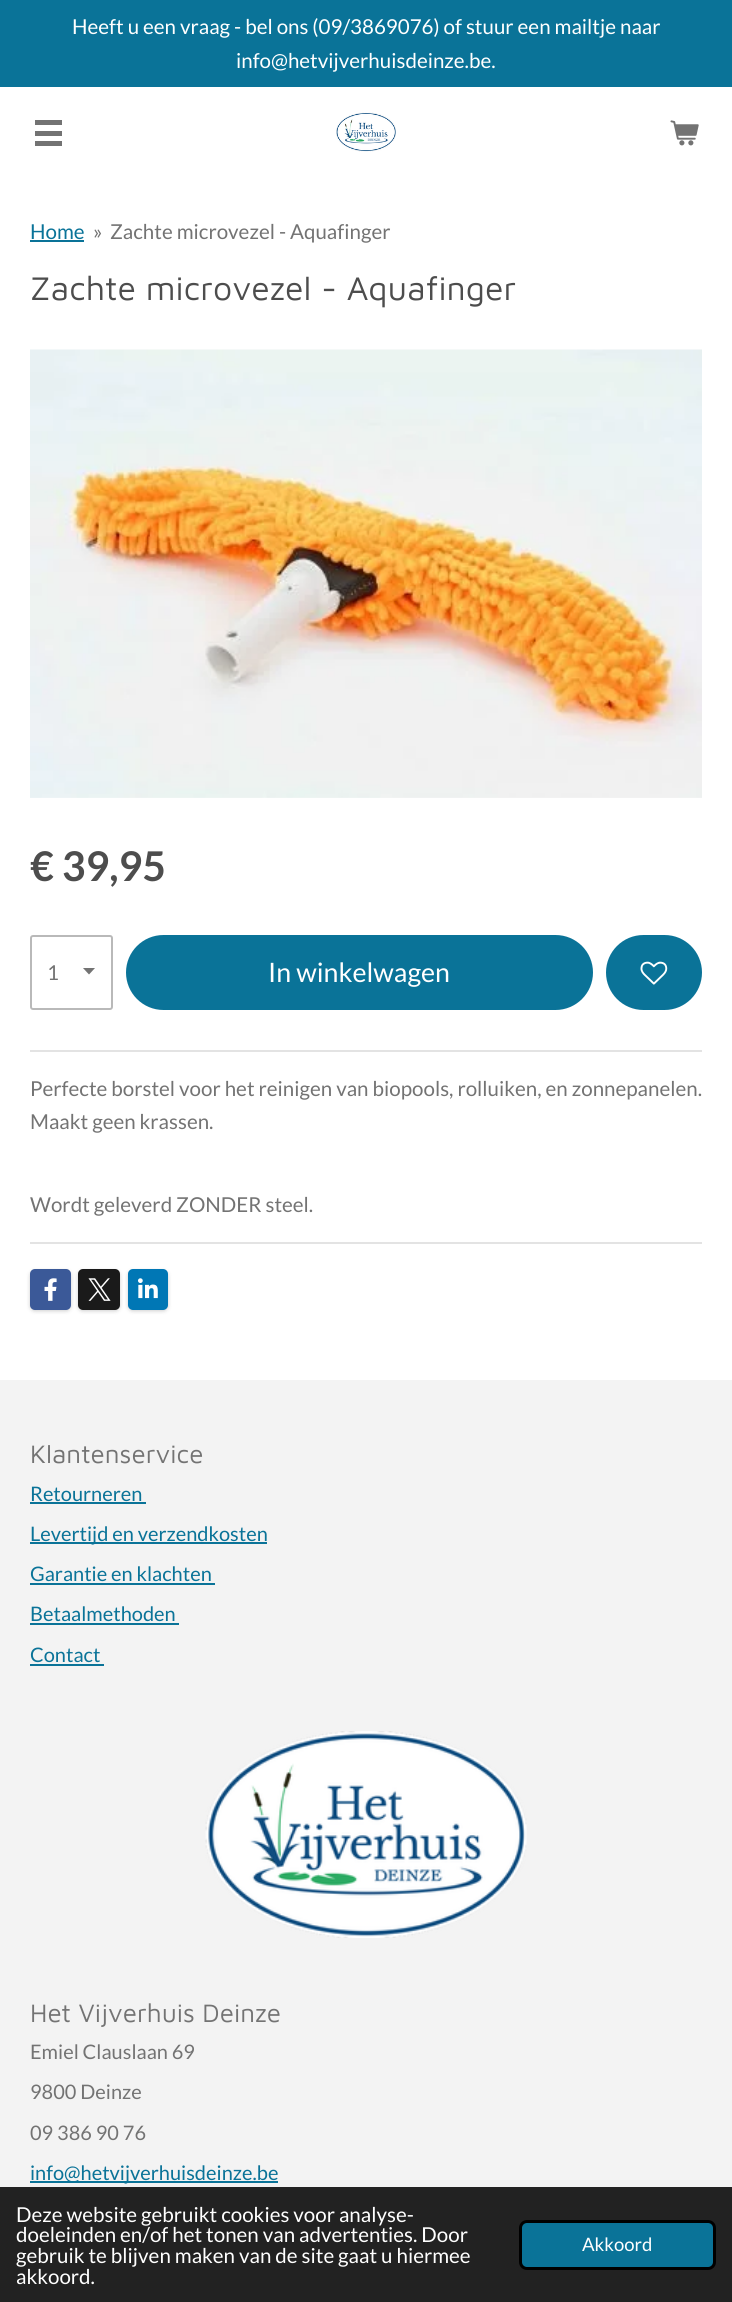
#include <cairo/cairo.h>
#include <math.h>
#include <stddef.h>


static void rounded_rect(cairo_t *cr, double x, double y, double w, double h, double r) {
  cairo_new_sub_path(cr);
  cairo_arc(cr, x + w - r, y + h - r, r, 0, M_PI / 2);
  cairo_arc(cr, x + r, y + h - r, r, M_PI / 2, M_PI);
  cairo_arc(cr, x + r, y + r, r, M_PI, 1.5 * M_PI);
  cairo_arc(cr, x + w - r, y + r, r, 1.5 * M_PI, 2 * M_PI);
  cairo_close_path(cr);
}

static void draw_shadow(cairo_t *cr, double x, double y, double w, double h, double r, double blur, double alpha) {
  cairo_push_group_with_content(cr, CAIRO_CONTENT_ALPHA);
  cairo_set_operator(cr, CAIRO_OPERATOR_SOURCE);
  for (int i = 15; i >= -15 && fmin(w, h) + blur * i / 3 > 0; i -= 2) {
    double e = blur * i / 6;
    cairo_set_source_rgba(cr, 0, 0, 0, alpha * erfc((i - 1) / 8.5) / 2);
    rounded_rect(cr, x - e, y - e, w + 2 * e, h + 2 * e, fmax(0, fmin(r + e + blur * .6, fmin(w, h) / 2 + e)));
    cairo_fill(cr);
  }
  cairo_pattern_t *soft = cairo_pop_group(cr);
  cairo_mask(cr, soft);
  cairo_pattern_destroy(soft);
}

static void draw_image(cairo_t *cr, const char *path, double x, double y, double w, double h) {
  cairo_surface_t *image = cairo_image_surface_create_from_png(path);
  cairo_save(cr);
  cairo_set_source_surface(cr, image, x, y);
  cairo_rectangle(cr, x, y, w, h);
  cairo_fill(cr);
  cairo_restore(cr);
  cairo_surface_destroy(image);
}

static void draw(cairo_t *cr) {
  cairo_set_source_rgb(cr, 1, 1, 1);
  cairo_paint(cr);
  cairo_set_source_rgb(cr, 10 / 255.0, 115 / 255.0, 152 / 255.0);
  cairo_rectangle(cr, 0, 0, 732, 87);
  cairo_fill(cr);
  cairo_set_source_rgb(cr, 115 / 255.0, 115 / 255.0, 115 / 255.0);
  cairo_rectangle(cr, 35, 131, 27, 5);
  cairo_fill(cr);
  cairo_rectangle(cr, 35, 120, 27, 5);
  cairo_fill(cr);
  cairo_rectangle(cr, 35, 141, 27, 5);
  cairo_fill(cr);
  draw_image(cr, "images/1.png", 336, 112, 60, 40);
  draw_image(cr, "images/2.png", 670, 120, 29, 26);
  cairo_set_source_rgb(cr, 10 / 255.0, 115 / 255.0, 152 / 255.0);
  cairo_rectangle(cr, 30, 240, 54, 2);
  cairo_fill(cr);
  draw_image(cr, "images/3.png", 30, 349, 672, 449);
  cairo_save(cr);
  cairo_rectangle(cr, 83, 968, 13, 7);
  cairo_clip(cr);
  cairo_set_source_rgb(cr, 115 / 255.0, 115 / 255.0, 115 / 255.0);
  cairo_new_path(cr);
  cairo_move_to(cr, 89, 974.5);
  cairo_line_to(cr, 82.5, 967.5);
  cairo_line_to(cr, 95.5, 967.5);
  cairo_close_path(cr);
  cairo_fill(cr);
  cairo_restore(cr);
  rounded_rect(cr, 31, 936, 81, 73, 2);
  cairo_set_source_rgb(cr, 185 / 255.0, 185 / 255.0, 185 / 255.0);
  cairo_stroke(cr);
  cairo_set_source_rgb(cr, 10 / 255.0, 115 / 255.0, 152 / 255.0);
  rounded_rect(cr, 126, 935, 467, 75, 37.5);
  cairo_fill(cr);
  rounded_rect(cr, 606, 935, 96, 75, 37.5);
  cairo_fill(cr);
  draw_image(cr, "images/4.png", 640, 961, 28, 24);
  cairo_set_source_rgb(cr, 227 / 255.0, 227 / 255.0, 227 / 255.0);
  cairo_rectangle(cr, 30, 1050, 672, 2);
  cairo_fill(cr);
  cairo_rectangle(cr, 30, 1242, 672, 2);
  cairo_fill(cr);
  cairo_set_source_rgb(cr, 0, 0, 0);
  draw_shadow(cr, 30, 1271, 41, 40, 5, 2, 0.2);
  cairo_set_source_rgb(cr, 59 / 255.0, 89 / 255.0, 152 / 255.0);
  rounded_rect(cr, 30, 1269, 41, 41, 5);
  cairo_fill(cr);
  draw_image(cr, "images/5.png", 44, 1278, 13, 23);
  cairo_set_source_rgb(cr, 0, 0, 0);
  draw_shadow(cr, 78, 1271, 42, 40, 5, 2, 0.2);
  cairo_set_source_rgb(cr, 26 / 255.0, 26 / 255.0, 26 / 255.0);
  rounded_rect(cr, 78, 1269, 42, 41, 5);
  cairo_fill(cr);
  draw_image(cr, "images/6.png", 88, 1278, 23, 23);
  cairo_set_source_rgb(cr, 0, 0, 0);
  draw_shadow(cr, 128, 1271, 40, 40, 5, 2, 0.2);
  cairo_set_source_rgb(cr, 0, 119 / 255.0, 181 / 255.0);
  rounded_rect(cr, 128, 1269, 40, 41, 5);
  cairo_fill(cr);
  draw_image(cr, "images/7.png", 138, 1278, 20, 21);
  cairo_set_source_rgb(cr, 243 / 255.0, 243 / 255.0, 243 / 255.0);
  cairo_rectangle(cr, 0, 1380, 732, 807);
  cairo_fill(cr);
  cairo_set_source_rgb(cr, 10 / 255.0, 115 / 255.0, 152 / 255.0);
  cairo_rectangle(cr, 30, 1502, 116, 2);
  cairo_fill(cr);
  cairo_rectangle(cr, 30, 1542, 237, 2);
  cairo_fill(cr);
  cairo_rectangle(cr, 30, 1583, 185, 2);
  cairo_fill(cr);
  cairo_rectangle(cr, 30, 1623, 149, 2);
  cairo_fill(cr);
  cairo_rectangle(cr, 30, 1664, 74, 2);
  cairo_fill(cr);
  draw_image(cr, "images/8.png", 205, 1731, 322, 207);
  cairo_rectangle(cr, 30, 2181, 248, 2);
  cairo_fill(cr);
  cairo_set_source_rgb(cr, 34 / 255.0, 34 / 255.0, 34 / 255.0);
  cairo_rectangle(cr, 0, 2187, 732, 115);
  cairo_fill(cr);
  cairo_set_source_rgb(cr, 10 / 255.0, 115 / 255.0, 152 / 255.0);
  rounded_rect(cr, 520.5, 2221.5, 194, 47, 6.5);
  cairo_fill_preserve(cr);
  cairo_set_source_rgb(cr, 0, 0, 0);
  cairo_set_line_width(cr, 3);
  cairo_stroke(cr);
  cairo_select_font_face(cr, "Lato", CAIRO_FONT_SLANT_NORMAL, CAIRO_FONT_WEIGHT_NORMAL);
  cairo_set_font_size(cr, 20.55);
  cairo_set_source_rgb(cr, 1, 1, 1);
  cairo_move_to(cr, 72, 34);
  cairo_show_text(cr, "Heeft u een vraag - bel ons (09/3869076) of stuur een mailtje naar");
  cairo_move_to(cr, 236, 68);
  cairo_show_text(cr, "info@hetvijverhuisdeinze.be.");
  cairo_set_source_rgb(cr, 10 / 255.0, 115 / 255.0, 152 / 255.0);
  cairo_move_to(cr, 30, 239);
  cairo_show_text(cr, "Home");
  cairo_set_source_rgb(cr, 115 / 255.0, 115 / 255.0, 115 / 255.0);
  cairo_move_to(cr, 93, 239);
  cairo_show_text(cr, "»");
  cairo_move_to(cr, 110, 239);
  cairo_show_text(cr, "Zachte microvezel - Aquafinger");
  cairo_select_font_face(cr, "Maven Pro", CAIRO_FONT_SLANT_NORMAL, CAIRO_FONT_WEIGHT_NORMAL);
  cairo_set_font_size(cr, 33.75);
  cairo_set_source_rgb(cr, 77 / 255.0, 77 / 255.0, 77 / 255.0);
  cairo_move_to(cr, 30, 300);
  cairo_show_text(cr, "Zachte microvezel - Aquafinger");
  cairo_select_font_face(cr, "Lato", CAIRO_FONT_SLANT_NORMAL, CAIRO_FONT_WEIGHT_BOLD);
  cairo_set_font_size(cr, 41);
  cairo_move_to(cr, 30, 881);
  cairo_show_text(cr, "€ 39,95");
  cairo_select_font_face(cr, "Lato", CAIRO_FONT_SLANT_NORMAL, CAIRO_FONT_WEIGHT_NORMAL);
  cairo_set_font_size(cr, 20.55);
  cairo_set_source_rgb(cr, 115 / 255.0, 115 / 255.0, 115 / 255.0);
  cairo_move_to(cr, 47, 980);
  cairo_show_text(cr, "1");
  cairo_set_font_size(cr, 26.75);
  cairo_set_source_rgb(cr, 1, 1, 1);
  cairo_move_to(cr, 268, 982);
  cairo_show_text(cr, "In winkelwagen");
  cairo_set_font_size(cr, 20.55);
  cairo_set_source_rgb(cr, 115 / 255.0, 115 / 255.0, 115 / 255.0);
  cairo_move_to(cr, 30, 1096);
  cairo_show_text(cr, "Perfecte borstel voor het reinigen van biopools, rolluiken, en zonnepanelen.");
  cairo_move_to(cr, 30, 1129);
  cairo_show_text(cr, "Maakt geen krassen.");
  cairo_move_to(cr, 30, 1212);
  cairo_show_text(cr, "Wordt geleverd ZONDER steel.");
  cairo_select_font_face(cr, "Maven Pro", CAIRO_FONT_SLANT_NORMAL, CAIRO_FONT_WEIGHT_NORMAL);
  cairo_set_font_size(cr, 26);
  cairo_move_to(cr, 30, 1463);
  cairo_show_text(cr, "Klantenservice");
  cairo_select_font_face(cr, "Lato", CAIRO_FONT_SLANT_NORMAL, CAIRO_FONT_WEIGHT_NORMAL);
  cairo_set_font_size(cr, 20);
  cairo_set_source_rgb(cr, 10 / 255.0, 115 / 255.0, 152 / 255.0);
  cairo_move_to(cr, 30, 1501);
  cairo_show_text(cr, "Retourneren");
  cairo_move_to(cr, 30, 1541);
  cairo_show_text(cr, "Levertijd en verzendkosten");
  cairo_move_to(cr, 30, 1581);
  cairo_show_text(cr, "Garantie en klachten");
  cairo_move_to(cr, 30, 1621);
  cairo_show_text(cr, "Betaalmethoden");
  cairo_move_to(cr, 30, 1662);
  cairo_show_text(cr, "Contact");
  cairo_select_font_face(cr, "Maven Pro", CAIRO_FONT_SLANT_NORMAL, CAIRO_FONT_WEIGHT_NORMAL);
  cairo_set_font_size(cr, 26);
  cairo_set_source_rgb(cr, 115 / 255.0, 115 / 255.0, 115 / 255.0);
  cairo_move_to(cr, 30, 2022);
  cairo_show_text(cr, "Het Vijverhuis Deinze");
  cairo_select_font_face(cr, "Lato", CAIRO_FONT_SLANT_NORMAL, CAIRO_FONT_WEIGHT_NORMAL);
  cairo_set_font_size(cr, 20);
  cairo_move_to(cr, 30, 2059);
  cairo_show_text(cr, "Emiel Clauslaan 69");
  cairo_move_to(cr, 30, 2099);
  cairo_show_text(cr, "9800 Deinze");
  cairo_move_to(cr, 30, 2140);
  cairo_show_text(cr, "09 386 90 76");
  cairo_set_source_rgb(cr, 10 / 255.0, 115 / 255.0, 152 / 255.0);
  cairo_move_to(cr, 30, 2180);
  cairo_show_text(cr, "info@hetvijverhuisdeinze.be");
  cairo_set_font_size(cr, 20.55);
  cairo_set_source_rgb(cr, 1, 1, 1);
  cairo_move_to(cr, 16, 2222);
  cairo_show_text(cr, "Deze website gebruikt cookies voor analyse-");
  cairo_move_to(cr, 16, 2242);
  cairo_show_text(cr, "doeleinden en/of het tonen van advertenties. Door");
  cairo_move_to(cr, 16, 2263);
  cairo_show_text(cr, "gebruik te blijven maken van de site gaat u hiermee");
  cairo_move_to(cr, 16, 2284);
  cairo_show_text(cr, "akkoord.");
  cairo_set_font_size(cr, 18.5);
  cairo_move_to(cr, 582, 2251);
  cairo_show_text(cr, "Akkoord");
}

int main(void) {
  cairo_surface_t *surface = cairo_image_surface_create(CAIRO_FORMAT_RGB24, 732, 2302);
  cairo_t *cr = cairo_create(surface);
  cairo_font_options_t *options = cairo_font_options_create();
  cairo_font_options_set_hint_metrics(options, CAIRO_HINT_METRICS_OFF);
  cairo_font_options_set_hint_style(options, CAIRO_HINT_STYLE_NONE);
  cairo_set_font_options(cr, options);
  cairo_set_miter_limit(cr, 4);
  draw(cr);
  cairo_surface_write_to_png(surface, "out.png");
  cairo_font_options_destroy(options);
  cairo_destroy(cr);
  cairo_surface_destroy(surface);
  return 0;
}
